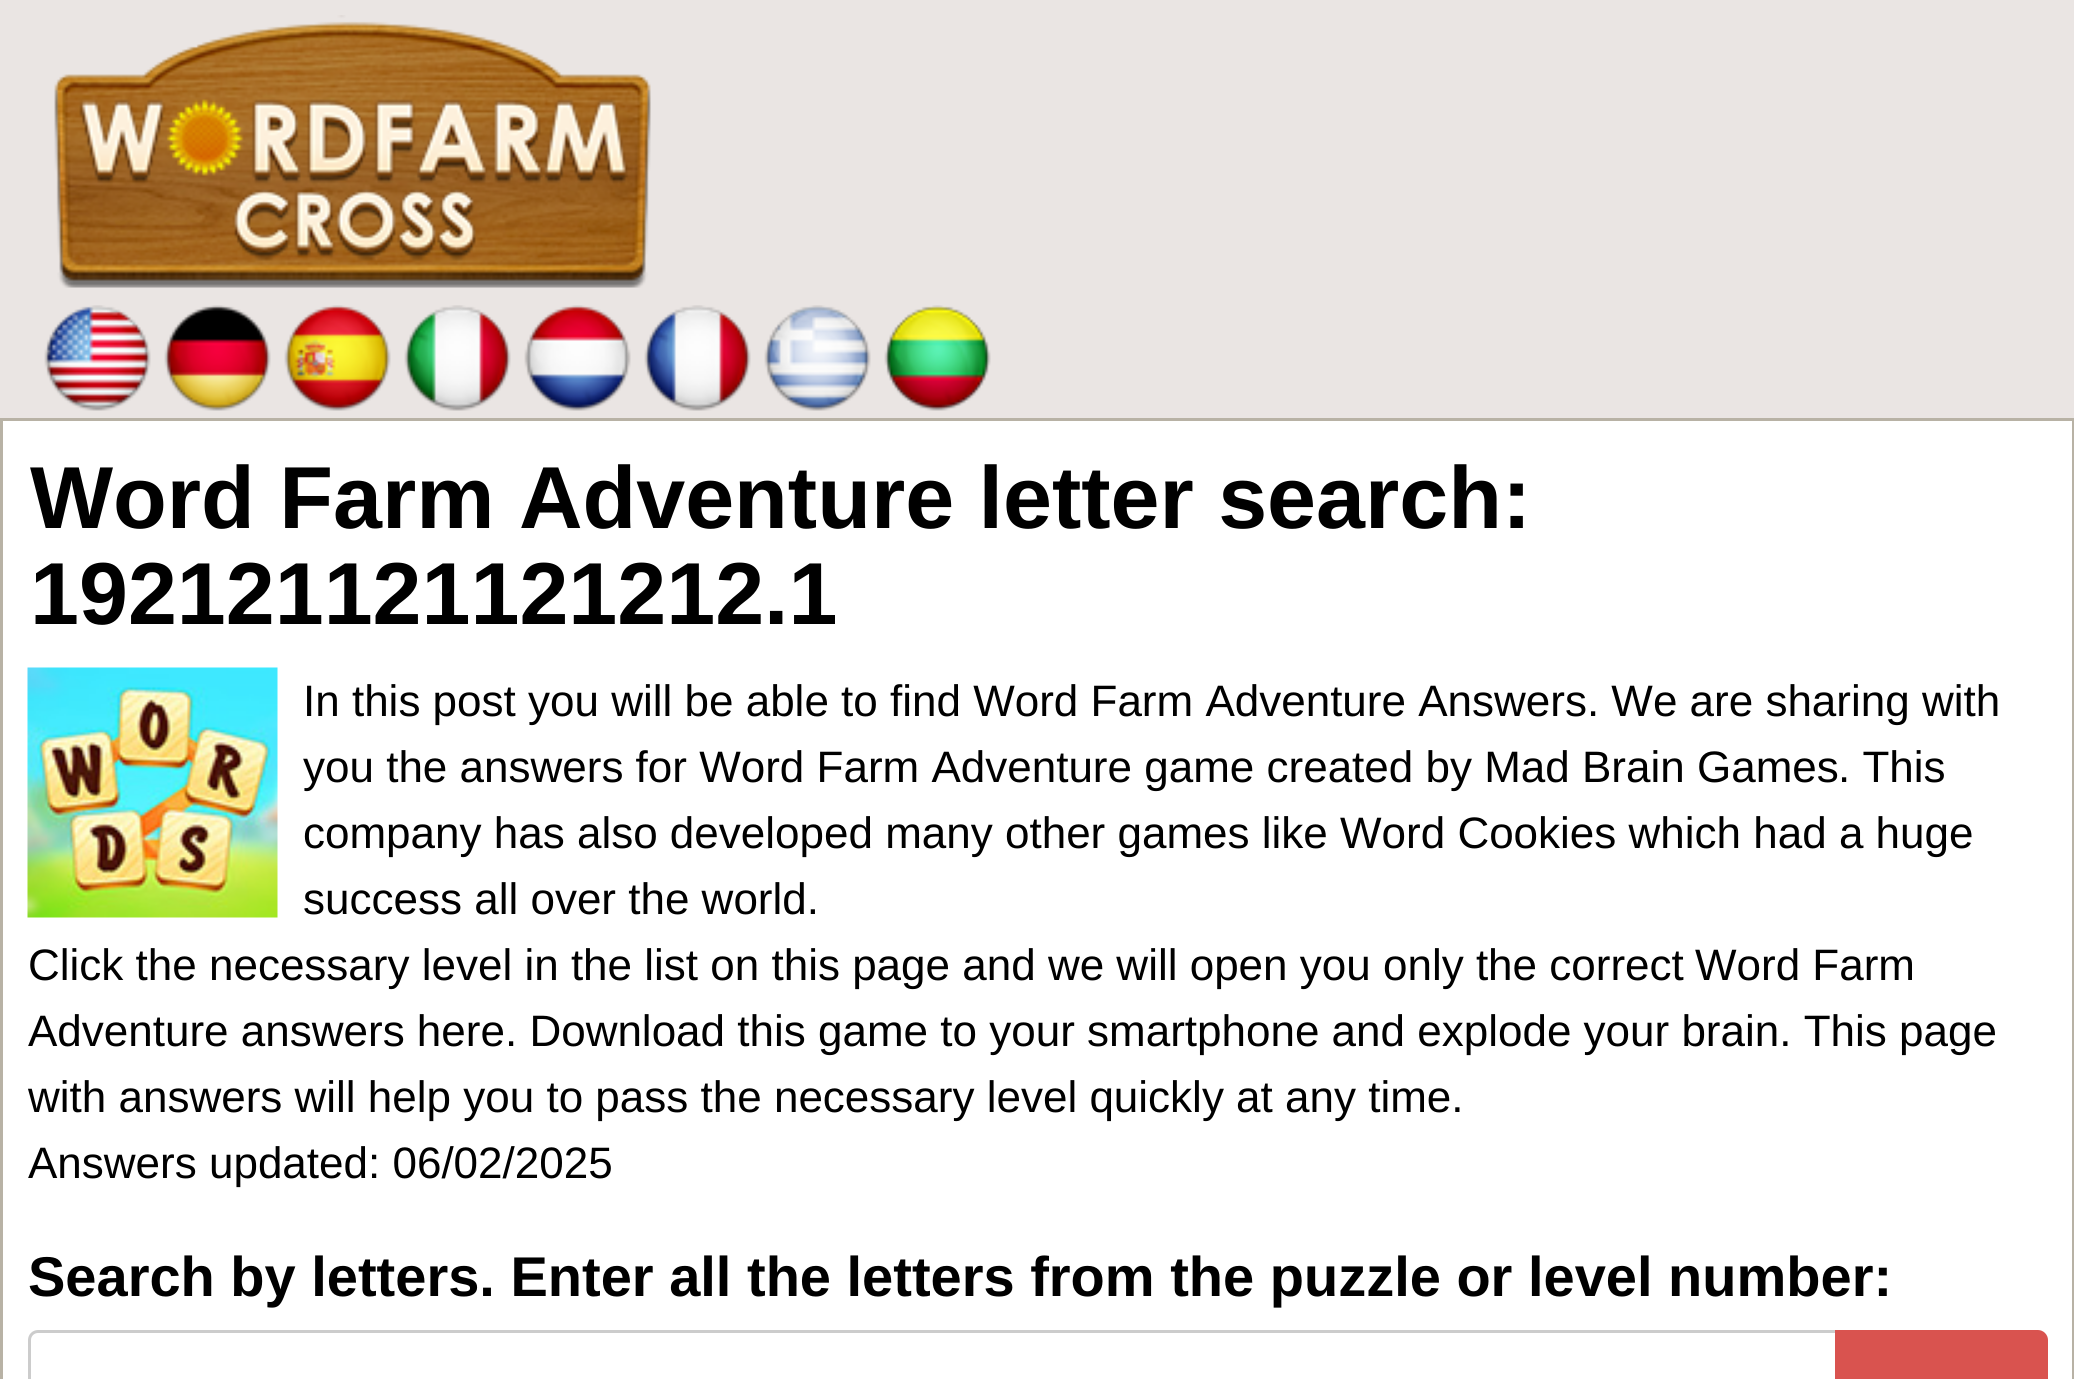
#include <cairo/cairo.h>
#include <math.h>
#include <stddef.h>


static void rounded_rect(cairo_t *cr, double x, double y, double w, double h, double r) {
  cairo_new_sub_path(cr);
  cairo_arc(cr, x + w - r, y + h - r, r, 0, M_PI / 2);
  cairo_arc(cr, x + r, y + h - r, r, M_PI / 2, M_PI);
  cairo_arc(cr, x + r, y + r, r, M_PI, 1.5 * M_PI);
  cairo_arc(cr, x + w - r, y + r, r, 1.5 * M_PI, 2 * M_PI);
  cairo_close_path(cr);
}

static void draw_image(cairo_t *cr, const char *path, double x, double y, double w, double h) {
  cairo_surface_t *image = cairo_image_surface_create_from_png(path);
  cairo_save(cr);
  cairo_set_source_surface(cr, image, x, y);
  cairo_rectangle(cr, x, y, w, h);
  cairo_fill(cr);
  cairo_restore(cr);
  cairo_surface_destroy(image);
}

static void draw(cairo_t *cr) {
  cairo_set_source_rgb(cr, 234 / 255.0, 229 / 255.0, 227 / 255.0);
  cairo_paint(cr);
  draw_image(cr, "images/1.png", 54, 15, 597, 273);
  draw_image(cr, "images/2.png", 44, 305, 107, 106);
  draw_image(cr, "images/3.png", 164, 305, 107, 106);
  draw_image(cr, "images/4.png", 284, 305, 107, 106);
  draw_image(cr, "images/5.png", 404, 305, 107, 106);
  draw_image(cr, "images/6.png", 524, 305, 107, 106);
  draw_image(cr, "images/7.png", 644, 305, 107, 106);
  draw_image(cr, "images/8.png", 764, 305, 107, 106);
  draw_image(cr, "images/9.png", 884, 305, 107, 106);
  cairo_set_source_rgb(cr, 1, 1, 1);
  cairo_rectangle(cr, 1.5, 419.5, 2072, 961);
  cairo_fill_preserve(cr);
  cairo_set_source_rgb(cr, 184 / 255.0, 178 / 255.0, 165 / 255.0);
  cairo_set_line_width(cr, 3);
  cairo_stroke(cr);
  draw_image(cr, "images/10.png", 27, 667, 251, 251);
  rounded_rect(cr, 29.5, 1331.5, 1872, 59, 8.5);
  cairo_set_source_rgb(cr, 204 / 255.0, 204 / 255.0, 204 / 255.0);
  cairo_stroke(cr);
  cairo_set_source_rgb(cr, 217 / 255.0, 83 / 255.0, 79 / 255.0);
  cairo_new_path(cr);
  cairo_move_to(cr, 1836.5, 1331.5);
  cairo_line_to(cr, 2038, 1331.5);
  cairo_curve_to(cr, 2042.5, 1331.5, 2046.5, 1335.5, 2046.5, 1340);
  cairo_line_to(cr, 2046.5, 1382);
  cairo_curve_to(cr, 2046.5, 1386.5, 2042.5, 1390.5, 2038, 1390.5);
  cairo_line_to(cr, 1836.5, 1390.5);
  cairo_close_path(cr);
  cairo_fill_preserve(cr);
  cairo_stroke(cr);
  cairo_select_font_face(cr, "Liberation Sans", CAIRO_FONT_SLANT_NORMAL, CAIRO_FONT_WEIGHT_BOLD);
  cairo_set_font_size(cr, 88);
  cairo_set_source_rgb(cr, 0, 0, 0);
  cairo_move_to(cr, 30, 528);
  cairo_show_text(cr, "Word Farm Adventure letter search:");
  cairo_move_to(cr, 30, 624);
  cairo_show_text(cr, "192121121121212.1");
  cairo_select_font_face(cr, "Liberation Sans", CAIRO_FONT_SLANT_NORMAL, CAIRO_FONT_WEIGHT_NORMAL);
  cairo_set_font_size(cr, 44);
  cairo_move_to(cr, 303, 716);
  cairo_show_text(cr, "In this post you will be able to find Word Farm Adventure Answers. We are sharing with");
  cairo_move_to(cr, 303, 782);
  cairo_show_text(cr, "you the answers for Word Farm Adventure game created by Mad Brain Games");
  cairo_move_to(cr, 1838, 782);
  cairo_show_text(cr, ". This");
  cairo_move_to(cr, 303, 848);
  cairo_show_text(cr, "company has also developed many other games like Word Cookies which had a huge");
  cairo_move_to(cr, 303, 914);
  cairo_show_text(cr, "success all over the world.");
  cairo_move_to(cr, 28, 980);
  cairo_show_text(cr, "Click the necessary level in the list on this page and we will open you only the correct");
  cairo_move_to(cr, 1695, 980);
  cairo_show_text(cr, "Word Farm");
  cairo_move_to(cr, 28, 1046);
  cairo_show_text(cr, "Adventure answers here. Download this game to your smartphone and explode your brain. This page");
  cairo_move_to(cr, 28, 1112);
  cairo_show_text(cr, "with answers will help you to pass the necessary level quickly at any time.");
  cairo_move_to(cr, 28, 1178);
  cairo_show_text(cr, "Answers updated: 06/02/2025");
  cairo_select_font_face(cr, "Liberation Sans", CAIRO_FONT_SLANT_NORMAL, CAIRO_FONT_WEIGHT_BOLD);
  cairo_set_font_size(cr, 56);
  cairo_move_to(cr, 28, 1296);
  cairo_show_text(cr, "Search by letters. Enter all the letters from the puzzle or level number:");
}

int main(void) {
  cairo_surface_t *surface = cairo_image_surface_create(CAIRO_FORMAT_RGB24, 2074, 1379);
  cairo_t *cr = cairo_create(surface);
  cairo_font_options_t *options = cairo_font_options_create();
  cairo_font_options_set_hint_metrics(options, CAIRO_HINT_METRICS_OFF);
  cairo_font_options_set_hint_style(options, CAIRO_HINT_STYLE_NONE);
  cairo_set_font_options(cr, options);
  cairo_set_miter_limit(cr, 4);
  draw(cr);
  cairo_surface_write_to_png(surface, "out.png");
  cairo_font_options_destroy(options);
  cairo_destroy(cr);
  cairo_surface_destroy(surface);
  return 0;
}
